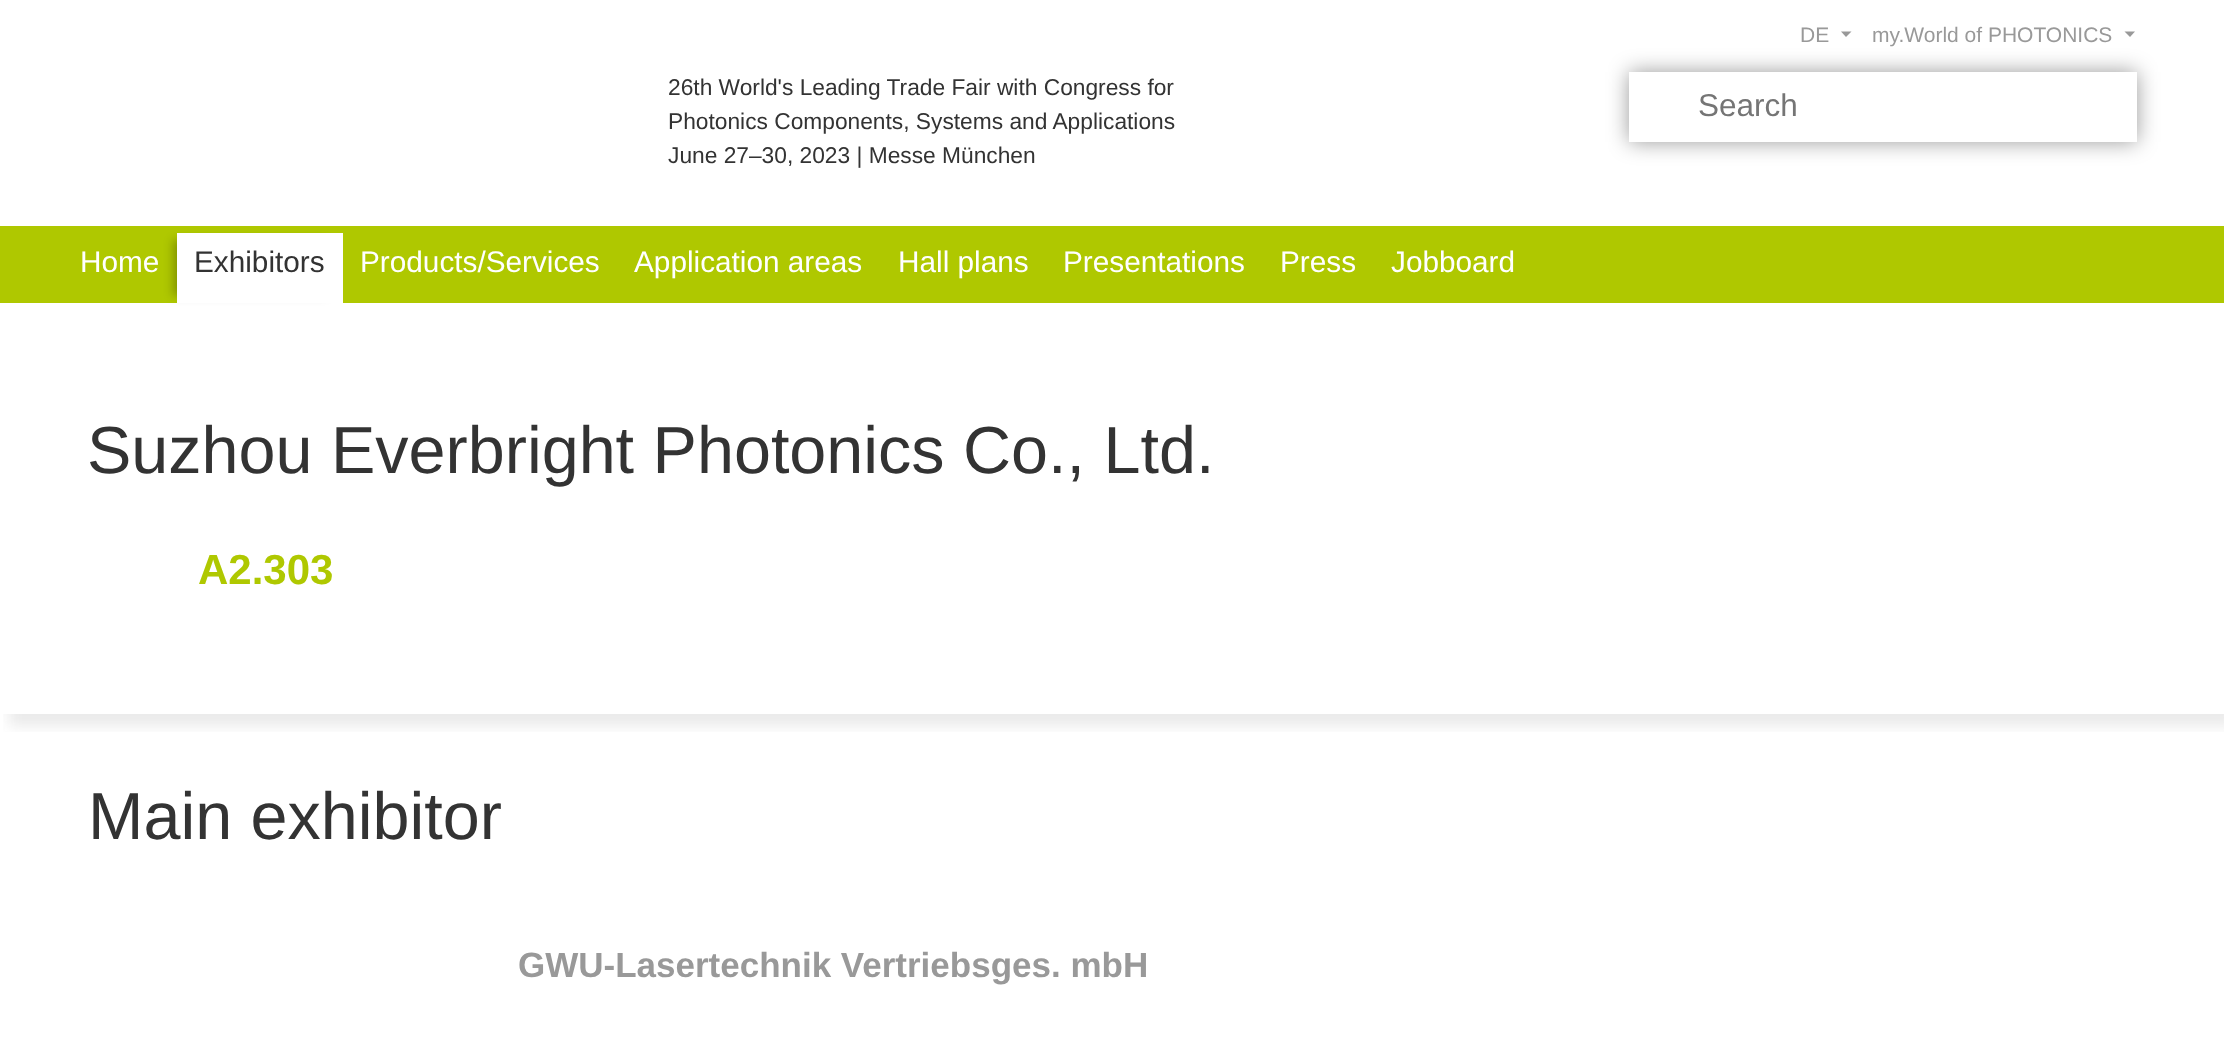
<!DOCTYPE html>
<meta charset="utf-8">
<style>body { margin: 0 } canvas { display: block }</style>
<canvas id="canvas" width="2224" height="1049"></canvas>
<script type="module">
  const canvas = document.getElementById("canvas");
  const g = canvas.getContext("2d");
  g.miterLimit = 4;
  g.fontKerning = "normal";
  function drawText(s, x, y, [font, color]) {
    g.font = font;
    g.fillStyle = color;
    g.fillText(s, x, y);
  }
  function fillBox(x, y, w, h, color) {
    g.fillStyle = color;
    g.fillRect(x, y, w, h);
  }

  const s1 = ["21px Liberation Sans", "#999999"];
  const s2 = ["22.75px Liberation Sans", "#333333"];
  const s3 = ["31.5px Liberation Sans", "#757575"];
  const s4 = ["29.75px Liberation Sans", "#FFFFFF"];
  const s5 = ["29.75px Liberation Sans", "#333333"];
  const s6 = ["66.5px Liberation Sans", "#333333"];
  const s7 = ["bold 42px Liberation Sans", "#AFC800"];
  const s8 = ["bold 35px Liberation Sans", "#999999"];

  fillBox(0, 0, 2224, 1049, "#FFFFFF");
  g.fillStyle = "rgba(0, 0, 0, 0.4)";
  g.filter = "blur(10.5px)";
  g.beginPath();
  g.rect(1629, 72, 508, 70);
  g.fill();
  g.filter = "none";
  drawText("DE", 1800, 42, s1);
  g.beginPath();
  g.moveTo(1841, 31.5);
  g.lineTo(1851.5, 31.5);
  g.lineTo(1846, 37);
  g.closePath();
  g.fill();
  drawText("my.World of PHOTONICS", 1872, 42, s1);
  g.beginPath();
  g.moveTo(2124.5, 31.5);
  g.lineTo(2135, 31.5);
  g.lineTo(2130, 37);
  g.closePath();
  g.fill();
  drawText("26th World's Leading Trade Fair with Congress for", 668, 95, s2);
  drawText("Photonics Components, Systems and Applications", 668, 129, s2);
  drawText("June 27–30, 2023 | Messe München", 668, 163, s2);
  fillBox(1629, 72, 508, 70, "#FFFFFF");
  drawText("Search", 1698, 116, s3);
  fillBox(0, 226, 2224, 77, "#AFC800");
  drawText("Home", 80, 272, s4);
  g.fillStyle = "rgba(0, 0, 0, 0.25)";
  g.filter = "blur(5px)";
  g.beginPath();
  g.rect(173, 240, 153, 56);
  g.fill();
  g.filter = "none";
  fillBox(177, 233, 166, 70, "#FFFFFF");
  drawText("Exhibitors", 194, 272, s5);
  drawText("Products/Services", 360, 272, s4);
  drawText("Application areas", 634, 272, s4);
  drawText("Hall plans", 898, 272, s4);
  drawText("Presentations", 1063, 272, s4);
  drawText("Press", 1280, 272, s4);
  drawText("Jobboard", 1391, 272, s4);
  drawText("Suzhou Everbright Photonics Co., Ltd.", 87, 473, s6);
  drawText("A2.303", 198, 584, s7);
  g.save();
  g.beginPath();
  g.rect(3, 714, 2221, 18);
  g.clip();
  g.fillStyle = "rgba(51, 51, 51, 0.1)";
  g.filter = "blur(7px)";
  g.beginPath();
  g.rect(9, 691, 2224, 35);
  g.fill();
  g.filter = "none";
  g.restore();
  drawText("Main exhibitor", 88, 839, s6);
  drawText("GWU-Lasertechnik Vertriebsges. mbH", 518, 977, s8);
</script>
